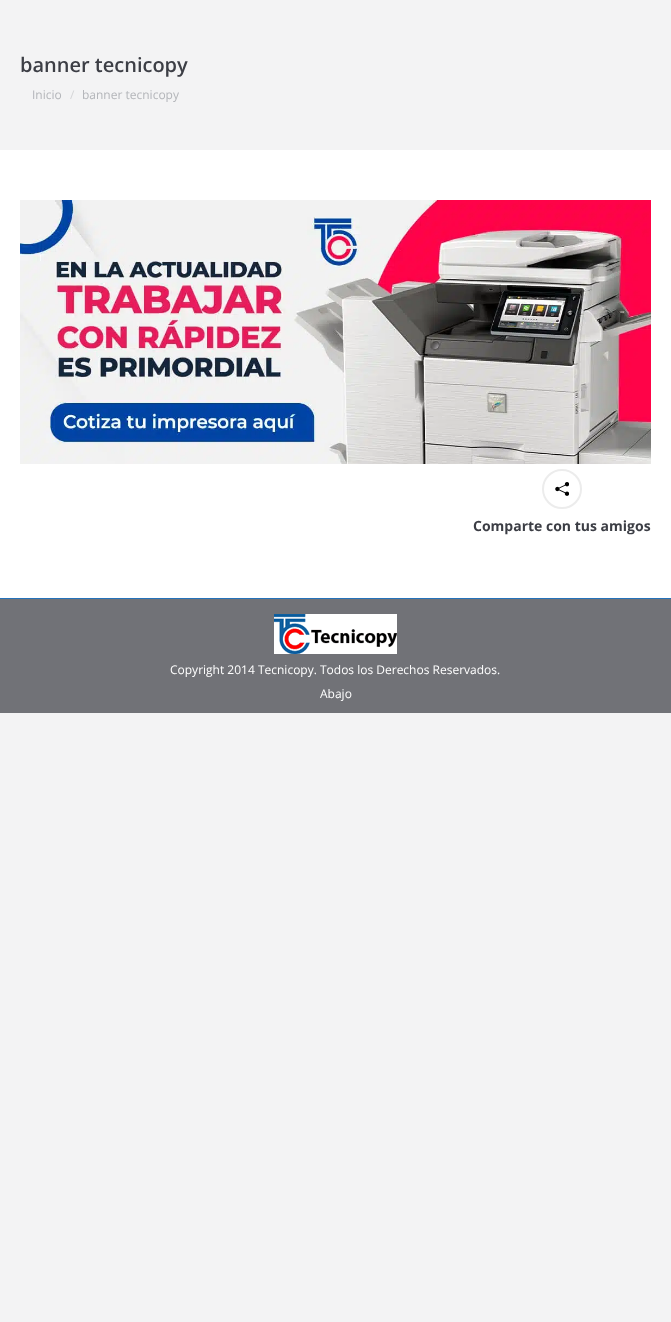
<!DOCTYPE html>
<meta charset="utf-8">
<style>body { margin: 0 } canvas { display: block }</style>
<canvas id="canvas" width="671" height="1322"></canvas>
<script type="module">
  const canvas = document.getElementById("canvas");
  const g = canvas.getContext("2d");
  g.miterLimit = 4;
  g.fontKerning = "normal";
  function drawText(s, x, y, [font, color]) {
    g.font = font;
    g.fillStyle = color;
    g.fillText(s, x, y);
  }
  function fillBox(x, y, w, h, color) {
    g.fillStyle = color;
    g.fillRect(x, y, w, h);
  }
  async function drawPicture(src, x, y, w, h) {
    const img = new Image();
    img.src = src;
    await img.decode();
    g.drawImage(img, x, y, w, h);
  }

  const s1 = ["600 20px Open Sans", "#3C3E45"];
  const s2 = ["12px Open Sans", "#B3B5B9"];
  const s3 = ["12px Open Sans", "#D4D5D7"];
  const s4 = ["bold 14px Open Sans", "#3C3E45"];
  const s5 = ["12px Open Sans", "#FFFFFF"];

  fillBox(0, 0, 671, 1322, "#F3F3F4");
  fillBox(0, 150, 671, 448, "#FFFFFF");
  drawText("banner tecnicopy", 20, 72, s1);
  drawText("Inicio", 32, 99, s2);
  drawText("/", 70, 99, s3);
  drawText("banner tecnicopy", 82, 99, s2);
  await drawPicture("pic1.png", 20, 200, 631, 264);
  g.beginPath();
  g.arc(562, 489, 19, 0, Math.PI * 2);
  g.strokeStyle = "#ECECEC";
  g.lineWidth = 2;
  g.stroke();
  await drawPicture("pic2.png", 555, 482, 14, 14);
  drawText("Comparte con tus amigos", 473, 531, s4);
  fillBox(0, 598, 671, 1, "#2572BA");
  fillBox(0, 599, 671, 114, "#717277");
  await drawPicture("pic3.png", 274, 614, 123, 40);
  drawText("Copyright 2014 Tecnicopy. Todos los Derechos Reservados.", 170, 674, s5);
  drawText("Abajo", 320, 698, s5);
</script>
